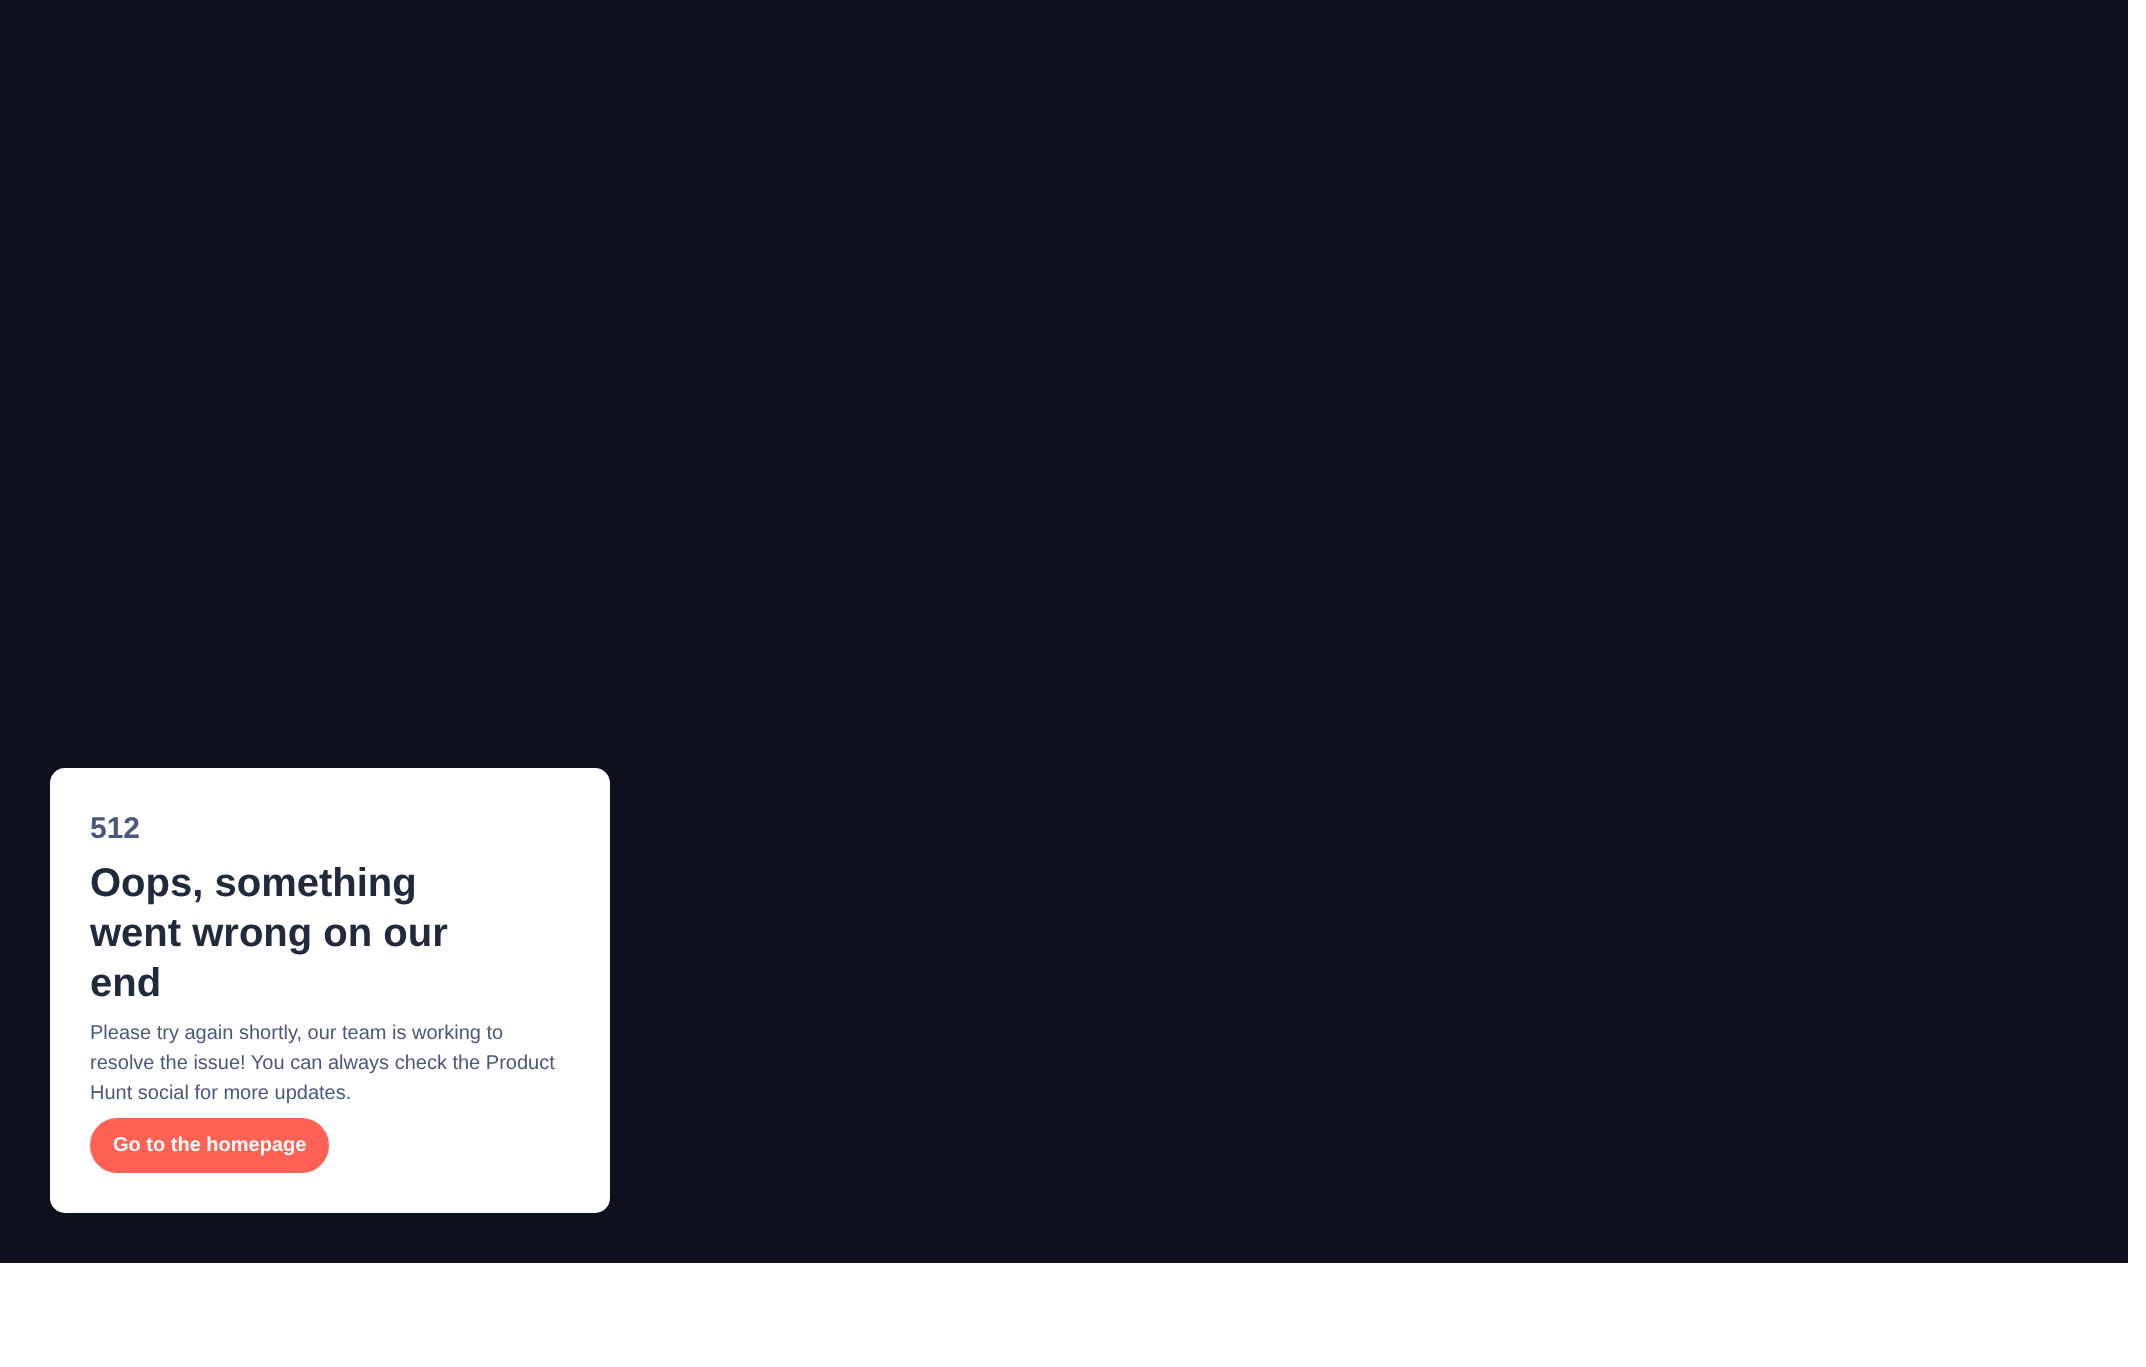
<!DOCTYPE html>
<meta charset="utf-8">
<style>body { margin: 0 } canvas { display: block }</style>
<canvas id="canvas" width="2146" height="1367"></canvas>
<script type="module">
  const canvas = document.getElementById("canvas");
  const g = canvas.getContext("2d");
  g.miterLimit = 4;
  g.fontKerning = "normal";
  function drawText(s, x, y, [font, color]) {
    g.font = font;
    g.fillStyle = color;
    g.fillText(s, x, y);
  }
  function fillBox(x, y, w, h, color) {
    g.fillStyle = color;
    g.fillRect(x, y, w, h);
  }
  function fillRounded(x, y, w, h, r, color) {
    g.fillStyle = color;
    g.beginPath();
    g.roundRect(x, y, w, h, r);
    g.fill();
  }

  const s1 = ["bold 30px Liberation Sans", "#4B587C"];
  const s2 = ["bold 40px Liberation Sans", "#21293C"];
  const s3 = ["20px Liberation Sans", "#4B587C"];
  const s4 = ["bold 20px Liberation Sans", "#FFFFFF"];

  fillBox(0, 0, 2146, 1367, "#FFFFFF");
  fillBox(0, 0, 2128, 1263, "#0C111D");
  fillRounded(50, 768, 560, 445, 15, "#FFFFFF");
  drawText("512", 90, 838, s1);
  drawText("Oops, something", 90, 896, s2);
  drawText("went wrong on our", 90, 946, s2);
  drawText("end", 90, 996, s2);
  drawText("Please try again shortly, our team is working to", 90, 1039, s3);
  drawText("resolve the issue! You can always check the Product", 90, 1069, s3);
  drawText("Hunt social for more updates.", 90, 1099, s3);
  g.fillStyle = "#FF6154";
  g.beginPath();
  g.roundRect(91.5, 1119.5, 236, 52, 26);
  g.fill();
  g.strokeStyle = "#FF6154";
  g.lineWidth = 3;
  g.stroke();
  drawText("Go to the homepage", 113, 1151, s4);
</script>
